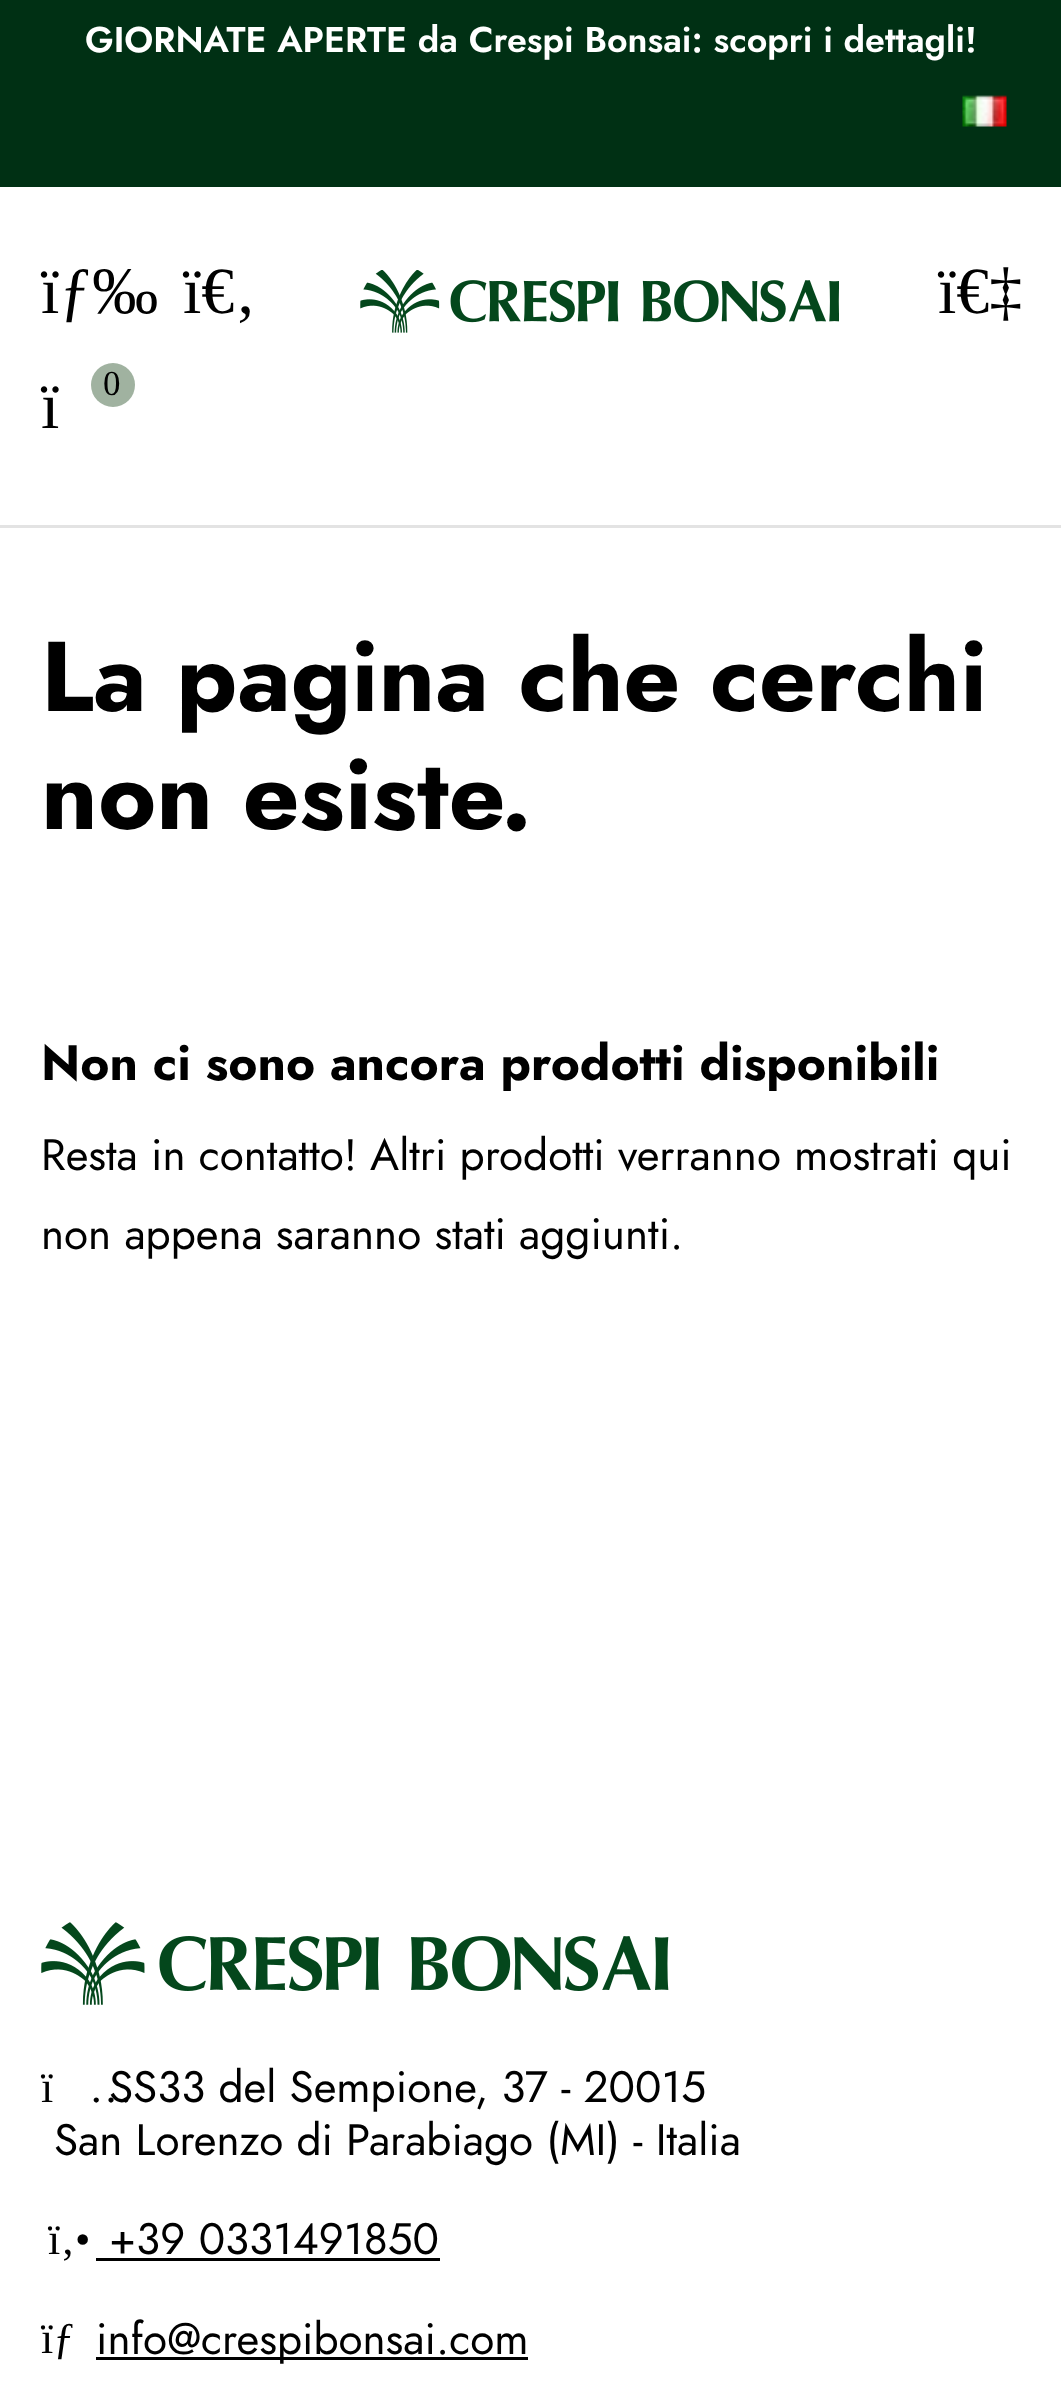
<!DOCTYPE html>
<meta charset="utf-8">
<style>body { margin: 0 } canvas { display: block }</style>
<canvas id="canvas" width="1061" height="2408"></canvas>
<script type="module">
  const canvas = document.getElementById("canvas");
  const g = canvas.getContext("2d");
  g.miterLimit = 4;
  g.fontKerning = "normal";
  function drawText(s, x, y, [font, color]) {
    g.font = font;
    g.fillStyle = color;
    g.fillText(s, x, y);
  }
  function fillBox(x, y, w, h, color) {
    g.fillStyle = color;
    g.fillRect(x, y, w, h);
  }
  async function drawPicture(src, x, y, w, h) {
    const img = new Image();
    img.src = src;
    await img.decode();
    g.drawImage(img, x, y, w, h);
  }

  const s1 = ["600 35.75px Jost", "#FFFFFF"];
  const s2 = ["66px Liberation Serif", "#000000"];
  const s3 = ["35px Liberation Serif", "#000000"];
  const s4 = ["bold 99px Jost", "#000000"];
  const s5 = ["bold 49.5px Jost", "#000000"];
  const s6 = ["44px Jost", "#000000"];
  const s7 = ["44px Liberation Serif", "#000000"];

  fillBox(0, 0, 1061, 2408, "#FFFFFF");
  fillBox(0, 0, 1061, 187, "#003014");
  drawText("GIORNATE APERTE da Crespi Bonsai: scopri i dettagli!", 85, 52, s1);
  await drawPicture("pic1.png", 962, 95, 45, 32);
  fillBox(0, 525, 1061, 3, "#E3E3E3");
  drawText("ïƒ‰", 41, 313, s2);
  drawText("ï€‚", 183, 313, s2);
  await drawPicture("pic2.png", 360, 270, 479, 63);
  drawText("ï€‡", 938, 313, s2);
  g.fillStyle = "#A0B2A0";
  g.beginPath();
  g.arc(113, 385, 22, 0, Math.PI * 2);
  g.fill();
  drawText("0", 103, 395, s3);
  drawText("ï", 41, 428, s2);
  drawText("La pagina che cerchi", 41, 711, s4);
  drawText("non esiste.", 41, 829, s4);
  drawText("Non ci sono ancora prodotti disponibili", 41, 1080, s5);
  drawText("Resta in contatto! Altri prodotti verranno mostrati qui", 41, 1170, s6);
  drawText("non appena saranno stati aggiunti.", 41, 1249, s6);
  await drawPicture("pic3.png", 41, 1922, 628, 83);
  drawText("ï", 41, 2102, s7);
  drawText("…", 89, 2102, s7);
  drawText("SS33 del Sempione, 37 - 20015", 109, 2102, s6);
  drawText("San Lorenzo di Parabiago (MI) - Italia", 54, 2155, s6);
  drawText("ï‚•", 48, 2254, s7);
  drawText("+39 0331491850", 109, 2254, s6);
  fillBox(96, 2258, 344, 3, "#000000");
  drawText("ïƒ", 41, 2353, s7);
  fillBox(96, 2357, 432, 3, "#000000");
  drawText("info@crespibonsai.com", 96, 2354, s6);
</script>
